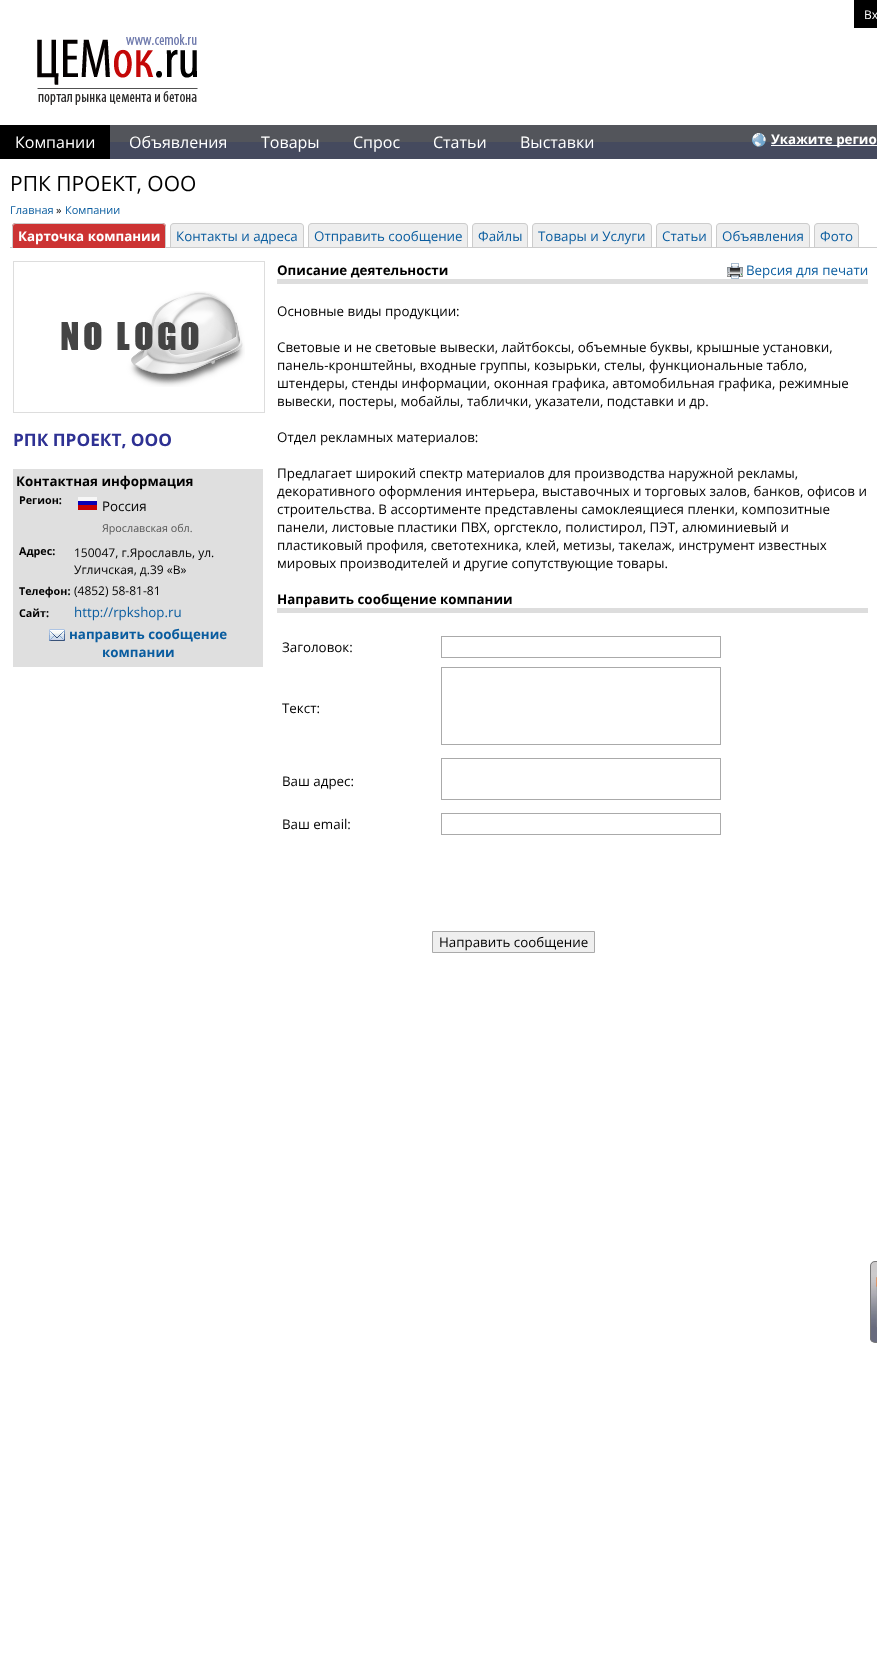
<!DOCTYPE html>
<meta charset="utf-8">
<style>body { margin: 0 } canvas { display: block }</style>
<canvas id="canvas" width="877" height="1656"></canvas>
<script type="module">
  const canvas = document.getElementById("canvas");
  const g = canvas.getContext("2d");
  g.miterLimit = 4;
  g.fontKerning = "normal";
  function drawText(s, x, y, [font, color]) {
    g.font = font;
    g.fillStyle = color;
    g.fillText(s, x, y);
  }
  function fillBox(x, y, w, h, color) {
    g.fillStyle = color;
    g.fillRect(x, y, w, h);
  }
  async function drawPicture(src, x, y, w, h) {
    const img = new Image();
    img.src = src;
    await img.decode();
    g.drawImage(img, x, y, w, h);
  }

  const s1 = ["12px Open Sans", "#FFFFFF"];
  const s2 = ["16px Open Sans", "#FFFFFF"];
  const s3 = ["bold 13.35px Open Sans", "#FFFFFF"];
  const s4 = ["21px Open Sans", "#000000"];
  const s5 = ["11px Open Sans", "#095C9F"];
  const s6 = ["11px Open Sans", "#000000"];
  const s7 = ["13.35px Open Sans", "#095C9F"];
  const s8 = ["bold 17.25px Open Sans", "#2E3193"];
  const s9 = ["bold 13.35px Open Sans", "#000000"];
  const s10 = ["bold 10.75px Open Sans", "#000000"];
  const s11 = ["13.35px Open Sans", "#000000"];
  const s12 = ["10.75px Open Sans", "#555555"];
  const s13 = ["12px Open Sans", "#000000"];
  const s14 = ["bold 13.35px Open Sans", "#095C9F"];

  fillBox(0, 0, 877, 1656, "#FFFFFF");
  fillBox(854, 0, 23, 28, "#000000");
  drawText("Вх", 864, 19, s1);
  await drawPicture("pic1.png", 37, 34, 161, 71);
  await drawPicture("pic2.png", 110, 125, 767, 34);
  fillBox(0, 125, 110, 34, "#000000");
  drawText("Компании", 15, 148, s2);
  drawText("Объявления", 129, 148, s2);
  drawText("Товары", 261, 148, s2);
  drawText("Спрос", 353, 148, s2);
  drawText("Статьи", 433, 148, s2);
  drawText("Выставки", 520, 148, s2);
  await drawPicture("pic3.png", 752, 133, 14, 14);
  fillBox(771, 145, 106, 1, "#FFFFFF");
  drawText("Укажите регио", 771, 144, s3);
  drawText("РПК ПРОЕКТ, ООО", 10, 191, s4);
  drawText("Главная", 10, 214, s5);
  drawText("»", 56, 214, s6);
  drawText("Компании", 65, 214, s5);
  fillBox(10, 247, 867, 1, "#CCCCCC");
  g.fillStyle = "#CC3333";
  g.beginPath();
  g.roundRect(12, 223, 154, 25, [4, 4, 0, 0]);
  g.fill();
  g.fillStyle = "#CCCCCC";
  g.beginPath();
  g.moveTo(16, 223);
  g.lineTo(162, 223);
  g.bezierCurveTo(164, 223, 166, 225, 166, 227);
  g.lineTo(166, 248);
  g.lineTo(12, 248);
  g.lineTo(12, 227);
  g.bezierCurveTo(12, 225, 14, 223, 16, 223);
  g.closePath();
  g.moveTo(16, 224);
  g.lineTo(162, 224);
  g.bezierCurveTo(164, 224, 165, 225, 165, 227);
  g.lineTo(165, 248);
  g.lineTo(13, 248);
  g.lineTo(13, 227);
  g.bezierCurveTo(13, 225, 14, 224, 16, 224);
  g.closePath();
  g.fill("evenodd");
  drawText("Карточка компании", 18, 241, s3);
  g.fillStyle = "#EEEEEE";
  g.beginPath();
  g.roundRect(170, 223, 134, 24, [4, 4, 0, 0]);
  g.fill();
  g.fillStyle = "#CCCCCC";
  g.beginPath();
  g.moveTo(174, 223);
  g.lineTo(300, 223);
  g.bezierCurveTo(302, 223, 304, 225, 304, 227);
  g.lineTo(304, 247);
  g.lineTo(170, 247);
  g.lineTo(170, 227);
  g.bezierCurveTo(170, 225, 172, 223, 174, 223);
  g.closePath();
  g.moveTo(174, 224);
  g.lineTo(300, 224);
  g.bezierCurveTo(302, 224, 303, 225, 303, 227);
  g.lineTo(303, 247);
  g.lineTo(171, 247);
  g.lineTo(171, 227);
  g.bezierCurveTo(171, 225, 172, 224, 174, 224);
  g.closePath();
  g.fill("evenodd");
  drawText("Контакты и адреса", 176, 241, s7);
  g.fillStyle = "#EEEEEE";
  g.beginPath();
  g.roundRect(308, 223, 160, 24, [4, 4, 0, 0]);
  g.fill();
  g.fillStyle = "#CCCCCC";
  g.beginPath();
  g.moveTo(312, 223);
  g.lineTo(464, 223);
  g.bezierCurveTo(466, 223, 468, 225, 468, 227);
  g.lineTo(468, 247);
  g.lineTo(308, 247);
  g.lineTo(308, 227);
  g.bezierCurveTo(308, 225, 310, 223, 312, 223);
  g.closePath();
  g.moveTo(312, 224);
  g.lineTo(464, 224);
  g.bezierCurveTo(466, 224, 467, 225, 467, 227);
  g.lineTo(467, 247);
  g.lineTo(309, 247);
  g.lineTo(309, 227);
  g.bezierCurveTo(309, 225, 310, 224, 312, 224);
  g.closePath();
  g.fill("evenodd");
  drawText("Отправить сообщение", 314, 241, s7);
  g.fillStyle = "#EEEEEE";
  g.beginPath();
  g.roundRect(472, 223, 56, 24, [4, 4, 0, 0]);
  g.fill();
  g.fillStyle = "#CCCCCC";
  g.beginPath();
  g.moveTo(476, 223);
  g.lineTo(524, 223);
  g.bezierCurveTo(526, 223, 528, 225, 528, 227);
  g.lineTo(528, 247);
  g.lineTo(472, 247);
  g.lineTo(472, 227);
  g.bezierCurveTo(472, 225, 474, 223, 476, 223);
  g.closePath();
  g.moveTo(476, 224);
  g.lineTo(524, 224);
  g.bezierCurveTo(526, 224, 527, 225, 527, 227);
  g.lineTo(527, 247);
  g.lineTo(473, 247);
  g.lineTo(473, 227);
  g.bezierCurveTo(473, 225, 474, 224, 476, 224);
  g.closePath();
  g.fill("evenodd");
  drawText("Файлы", 478, 241, s7);
  g.fillStyle = "#EEEEEE";
  g.beginPath();
  g.roundRect(532, 223, 120, 24, [4, 4, 0, 0]);
  g.fill();
  g.fillStyle = "#CCCCCC";
  g.beginPath();
  g.moveTo(536, 223);
  g.lineTo(648, 223);
  g.bezierCurveTo(650, 223, 652, 225, 652, 227);
  g.lineTo(652, 247);
  g.lineTo(532, 247);
  g.lineTo(532, 227);
  g.bezierCurveTo(532, 225, 534, 223, 536, 223);
  g.closePath();
  g.moveTo(536, 224);
  g.lineTo(648, 224);
  g.bezierCurveTo(650, 224, 651, 225, 651, 227);
  g.lineTo(651, 247);
  g.lineTo(533, 247);
  g.lineTo(533, 227);
  g.bezierCurveTo(533, 225, 534, 224, 536, 224);
  g.closePath();
  g.fill("evenodd");
  drawText("Товары и Услуги", 538, 241, s7);
  g.fillStyle = "#EEEEEE";
  g.beginPath();
  g.roundRect(656, 223, 56, 24, [4, 4, 0, 0]);
  g.fill();
  g.fillStyle = "#CCCCCC";
  g.beginPath();
  g.moveTo(660, 223);
  g.lineTo(708, 223);
  g.bezierCurveTo(710, 223, 712, 225, 712, 227);
  g.lineTo(712, 247);
  g.lineTo(656, 247);
  g.lineTo(656, 227);
  g.bezierCurveTo(656, 225, 658, 223, 660, 223);
  g.closePath();
  g.moveTo(660, 224);
  g.lineTo(708, 224);
  g.bezierCurveTo(710, 224, 711, 225, 711, 227);
  g.lineTo(711, 247);
  g.lineTo(657, 247);
  g.lineTo(657, 227);
  g.bezierCurveTo(657, 225, 658, 224, 660, 224);
  g.closePath();
  g.fill("evenodd");
  drawText("Статьи", 662, 241, s7);
  g.fillStyle = "#EEEEEE";
  g.beginPath();
  g.roundRect(716, 223, 94, 24, [4, 4, 0, 0]);
  g.fill();
  g.fillStyle = "#CCCCCC";
  g.beginPath();
  g.moveTo(720, 223);
  g.lineTo(806, 223);
  g.bezierCurveTo(808, 223, 810, 225, 810, 227);
  g.lineTo(810, 247);
  g.lineTo(716, 247);
  g.lineTo(716, 227);
  g.bezierCurveTo(716, 225, 718, 223, 720, 223);
  g.closePath();
  g.moveTo(720, 224);
  g.lineTo(806, 224);
  g.bezierCurveTo(808, 224, 809, 225, 809, 227);
  g.lineTo(809, 247);
  g.lineTo(717, 247);
  g.lineTo(717, 227);
  g.bezierCurveTo(717, 225, 718, 224, 720, 224);
  g.closePath();
  g.fill("evenodd");
  drawText("Объявления", 722, 241, s7);
  g.fillStyle = "#EEEEEE";
  g.beginPath();
  g.roundRect(814, 223, 45, 24, [4, 4, 0, 0]);
  g.fill();
  g.fillStyle = "#CCCCCC";
  g.beginPath();
  g.moveTo(818, 223);
  g.lineTo(855, 223);
  g.bezierCurveTo(857, 223, 859, 225, 859, 227);
  g.lineTo(859, 247);
  g.lineTo(814, 247);
  g.lineTo(814, 227);
  g.bezierCurveTo(814, 225, 816, 223, 818, 223);
  g.closePath();
  g.moveTo(818, 224);
  g.lineTo(855, 224);
  g.bezierCurveTo(857, 224, 858, 225, 858, 227);
  g.lineTo(858, 247);
  g.lineTo(815, 247);
  g.lineTo(815, 227);
  g.bezierCurveTo(815, 225, 816, 224, 818, 224);
  g.closePath();
  g.fill("evenodd");
  drawText("Фото", 820, 241, s7);
  g.strokeStyle = "#DDDDDD";
  g.strokeRect(13.5, 261.5, 251, 151);
  await drawPicture("pic4.png", 61, 291, 184, 96);
  drawText("РПК ПРОЕКТ, ООО", 13, 446, s8);
  fillBox(13, 469, 250, 198, "#DFDFDF");
  drawText("Контактная информация", 16, 486, s9);
  drawText("Регион:", 19, 504, s10);
  await drawPicture("pic5.png", 78, 497, 19, 13);
  drawText("Россия", 102, 511, s11);
  drawText("Ярославская обл.", 102, 532, s12);
  drawText("Адрес:", 19, 555, s10);
  drawText("150047, г.Ярославль, ул.", 74, 557, s13);
  drawText("Угличская, д.39 «В»", 74, 574, s13);
  drawText("Телефон:", 19, 595, s10);
  drawText("(4852) 58-81-81", 74, 595, s13);
  drawText("Сайт:", 19, 617, s10);
  drawText("http://rpkshop.ru", 74, 617, s7);
  await drawPicture("pic6.png", 49, 629, 16, 12);
  drawText("направить сообщение", 69, 639, s14);
  drawText("компании", 102, 657, s14);
  fillBox(277, 279, 591, 5, "#DDDDDD");
  drawText("Описание деятельности", 277, 275, s9);
  await drawPicture("pic7.png", 727, 263, 16, 16);
  drawText("Версия для печати", 746, 275, s7);
  drawText("Основные виды продукции:", 277, 316, s11);
  drawText("Световые и не световые вывески, лайтбоксы, объемные буквы, крышные установки,", 277, 352, s11);
  drawText("панель-кронштейны, входные группы, козырьки, стелы, функциональные табло,", 277, 370, s11);
  drawText("штендеры, стенды информации, оконная графика, автомобильная графика, режимные", 277, 388, s11);
  drawText("вывески, постеры, мобайлы, таблички, указатели, подставки и др.", 277, 406, s11);
  drawText("Отдел рекламных материалов:", 277, 442, s11);
  drawText("Предлагает широкий спектр материалов для производства наружной рекламы,", 277, 478, s11);
  drawText("декоративного оформления интерьера, выставочных и торговых залов, банков, офисов и", 277, 496, s11);
  drawText("строительства. В ассортименте представлены самоклеящиеся пленки, композитные", 277, 514, s11);
  drawText("панели, листовые пластики ПВХ, оргстекло, полистирол, ПЭТ, алюминиевый и", 277, 532, s11);
  drawText("пластиковый профиля, светотехника, клей, метизы, такелаж, инструмент известных", 277, 550, s11);
  drawText("мировых производителей и другие сопутствующие товары.", 277, 568, s11);
  fillBox(277, 608, 591, 5, "#DDDDDD");
  drawText("Направить сообщение компании", 277, 604, s9);
  drawText("Заголовок:", 282, 652, s11);
  g.strokeStyle = "#AAAAAA";
  g.strokeRect(441.5, 636.5, 279, 21);
  drawText("Текст:", 282, 713, s11);
  g.strokeRect(441.5, 667.5, 279, 77);
  drawText("Ваш адрес:", 282, 786, s11);
  g.strokeRect(441.5, 758.5, 279, 41);
  drawText("Ваш email:", 282, 829, s11);
  g.strokeRect(441.5, 813.5, 279, 21);
  g.fillStyle = "#EFEFEF";
  g.beginPath();
  g.rect(432.5, 931.5, 162, 21);
  g.fill();
  g.stroke();
  drawText("Направить сообщение", 439, 947, s11);
  await drawPicture("pic8.png", 870, 1261, 7, 81);
  g.beginPath();
  g.roundRect(870.5, 1261.5, 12, 81, 4.5);
  g.strokeStyle = "#777777";
  g.stroke();
  await drawPicture("pic9.png", 876, 1277, 1, 50);
</script>
